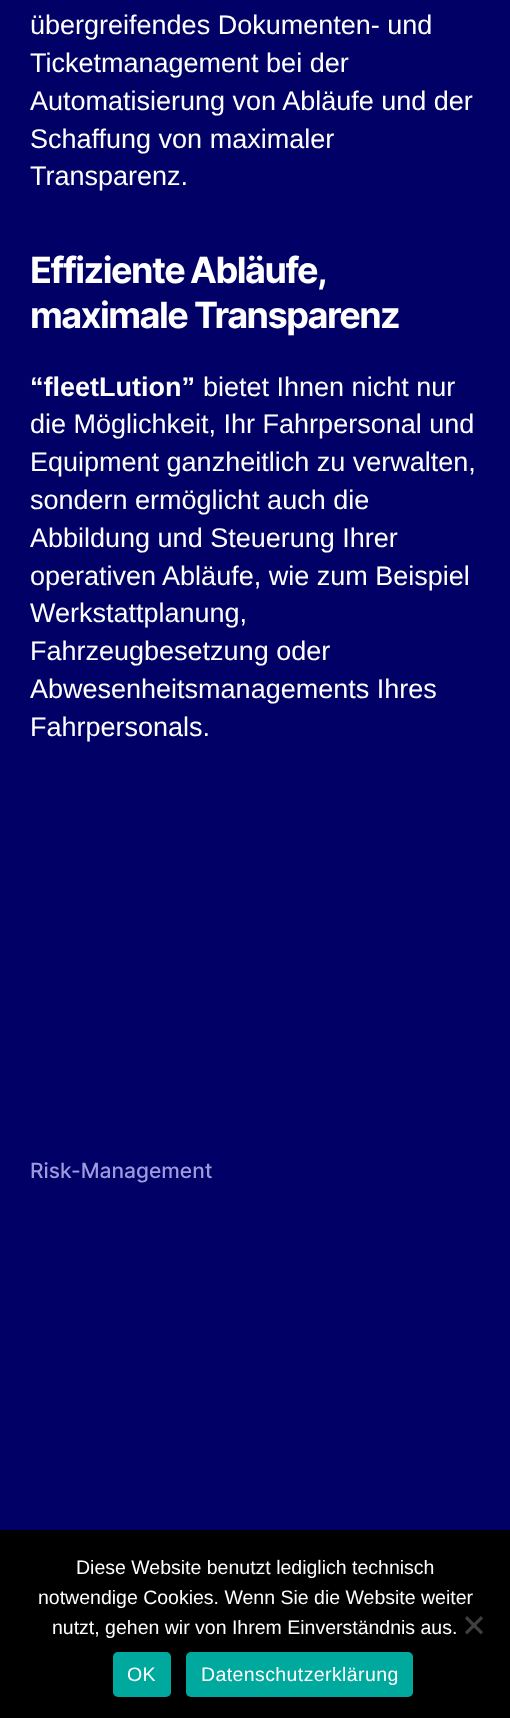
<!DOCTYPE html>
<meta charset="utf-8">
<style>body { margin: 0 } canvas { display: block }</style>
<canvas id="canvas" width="510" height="1718"></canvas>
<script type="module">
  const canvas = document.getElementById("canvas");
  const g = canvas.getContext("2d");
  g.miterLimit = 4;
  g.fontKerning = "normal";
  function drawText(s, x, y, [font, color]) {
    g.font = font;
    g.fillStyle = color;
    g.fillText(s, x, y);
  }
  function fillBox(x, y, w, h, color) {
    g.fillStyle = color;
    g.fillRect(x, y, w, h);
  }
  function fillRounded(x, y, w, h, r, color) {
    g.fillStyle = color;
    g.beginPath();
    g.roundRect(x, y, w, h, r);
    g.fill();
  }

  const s1 = ["27px Liberation Sans", "#FFFFFF"];
  const s2 = ["bold 36px Inter", "#FFFFFF"];
  const s3 = ["bold 27px Liberation Sans", "#FFFFFF"];
  const s4 = ["500 21px Inter", "#9C9BDD"];
  const s5 = ["19.5px Liberation Sans", "#FFFFFF"];

  fillBox(0, 0, 510, 1718, "#010066");
  drawText("übergreifendes Dokumenten- und", 30, 34, s1);
  drawText("Ticketmanagement bei der", 30, 72, s1);
  drawText("Automatisierung von Abläufe und der", 30, 110, s1);
  drawText("Schaffung von maximaler", 30, 148, s1);
  drawText("Transparenz.", 30, 185, s1);
  g.letterSpacing = "-1.5px";
  g.wordSpacing = "-1px";
  drawText("Effiziente Abläufe,", 30, 283, s2);
  g.wordSpacing = "0px";
  drawText("maximale Transparenz", 30, 328, s2);
  g.letterSpacing = "0px";
  drawText("“fleetLution”", 30, 396, s3);
  drawText("bietet Ihnen nicht nur", 203, 396, s1);
  drawText("die Möglichkeit, Ihr Fahrpersonal und", 30, 433, s1);
  drawText("Equipment ganzheitlich zu verwalten,", 30, 471, s1);
  drawText("sondern ermöglicht auch die", 30, 509, s1);
  drawText("Abbildung und Steuerung Ihrer", 30, 547, s1);
  drawText("operativen Abläufe, wie zum Beispiel", 30, 585, s1);
  drawText("Werkstattplanung,", 30, 622, s1);
  drawText("Fahrzeugbesetzung oder", 30, 660, s1);
  drawText("Abwesenheitsmanagements Ihres", 30, 698, s1);
  drawText("Fahrpersonals.", 30, 736, s1);
  drawText("Risk-Management", 30, 1178, s4);
  fillBox(0, 1530, 510, 188, "#000000");
  drawText("Diese Website benutzt lediglich technisch", 76, 1574, s5);
  drawText("notwendige Cookies. Wenn Sie die Website weiter", 38, 1604, s5);
  drawText("nutzt, gehen wir von Ihrem Einverständnis aus.", 52, 1634, s5);
  g.fillStyle = "#404040";
  g.beginPath();
  g.moveTo(481, 1616);
  g.lineTo(483, 1618.5);
  g.lineTo(467, 1634.5);
  g.lineTo(465, 1632);
  g.closePath();
  g.fill();
  g.beginPath();
  g.moveTo(465, 1618.5);
  g.lineTo(467, 1616);
  g.lineTo(483, 1632);
  g.lineTo(481, 1634.5);
  g.closePath();
  g.fill();
  fillRounded(113, 1652, 58, 45, 5, "#00A99D");
  g.letterSpacing = "0.4px";
  drawText("OK", 127, 1681, s5);
  fillRounded(186, 1652, 227, 45, 5, "#00A99D");
  drawText("Datenschutzerklärung", 201, 1681, s5);
</script>
